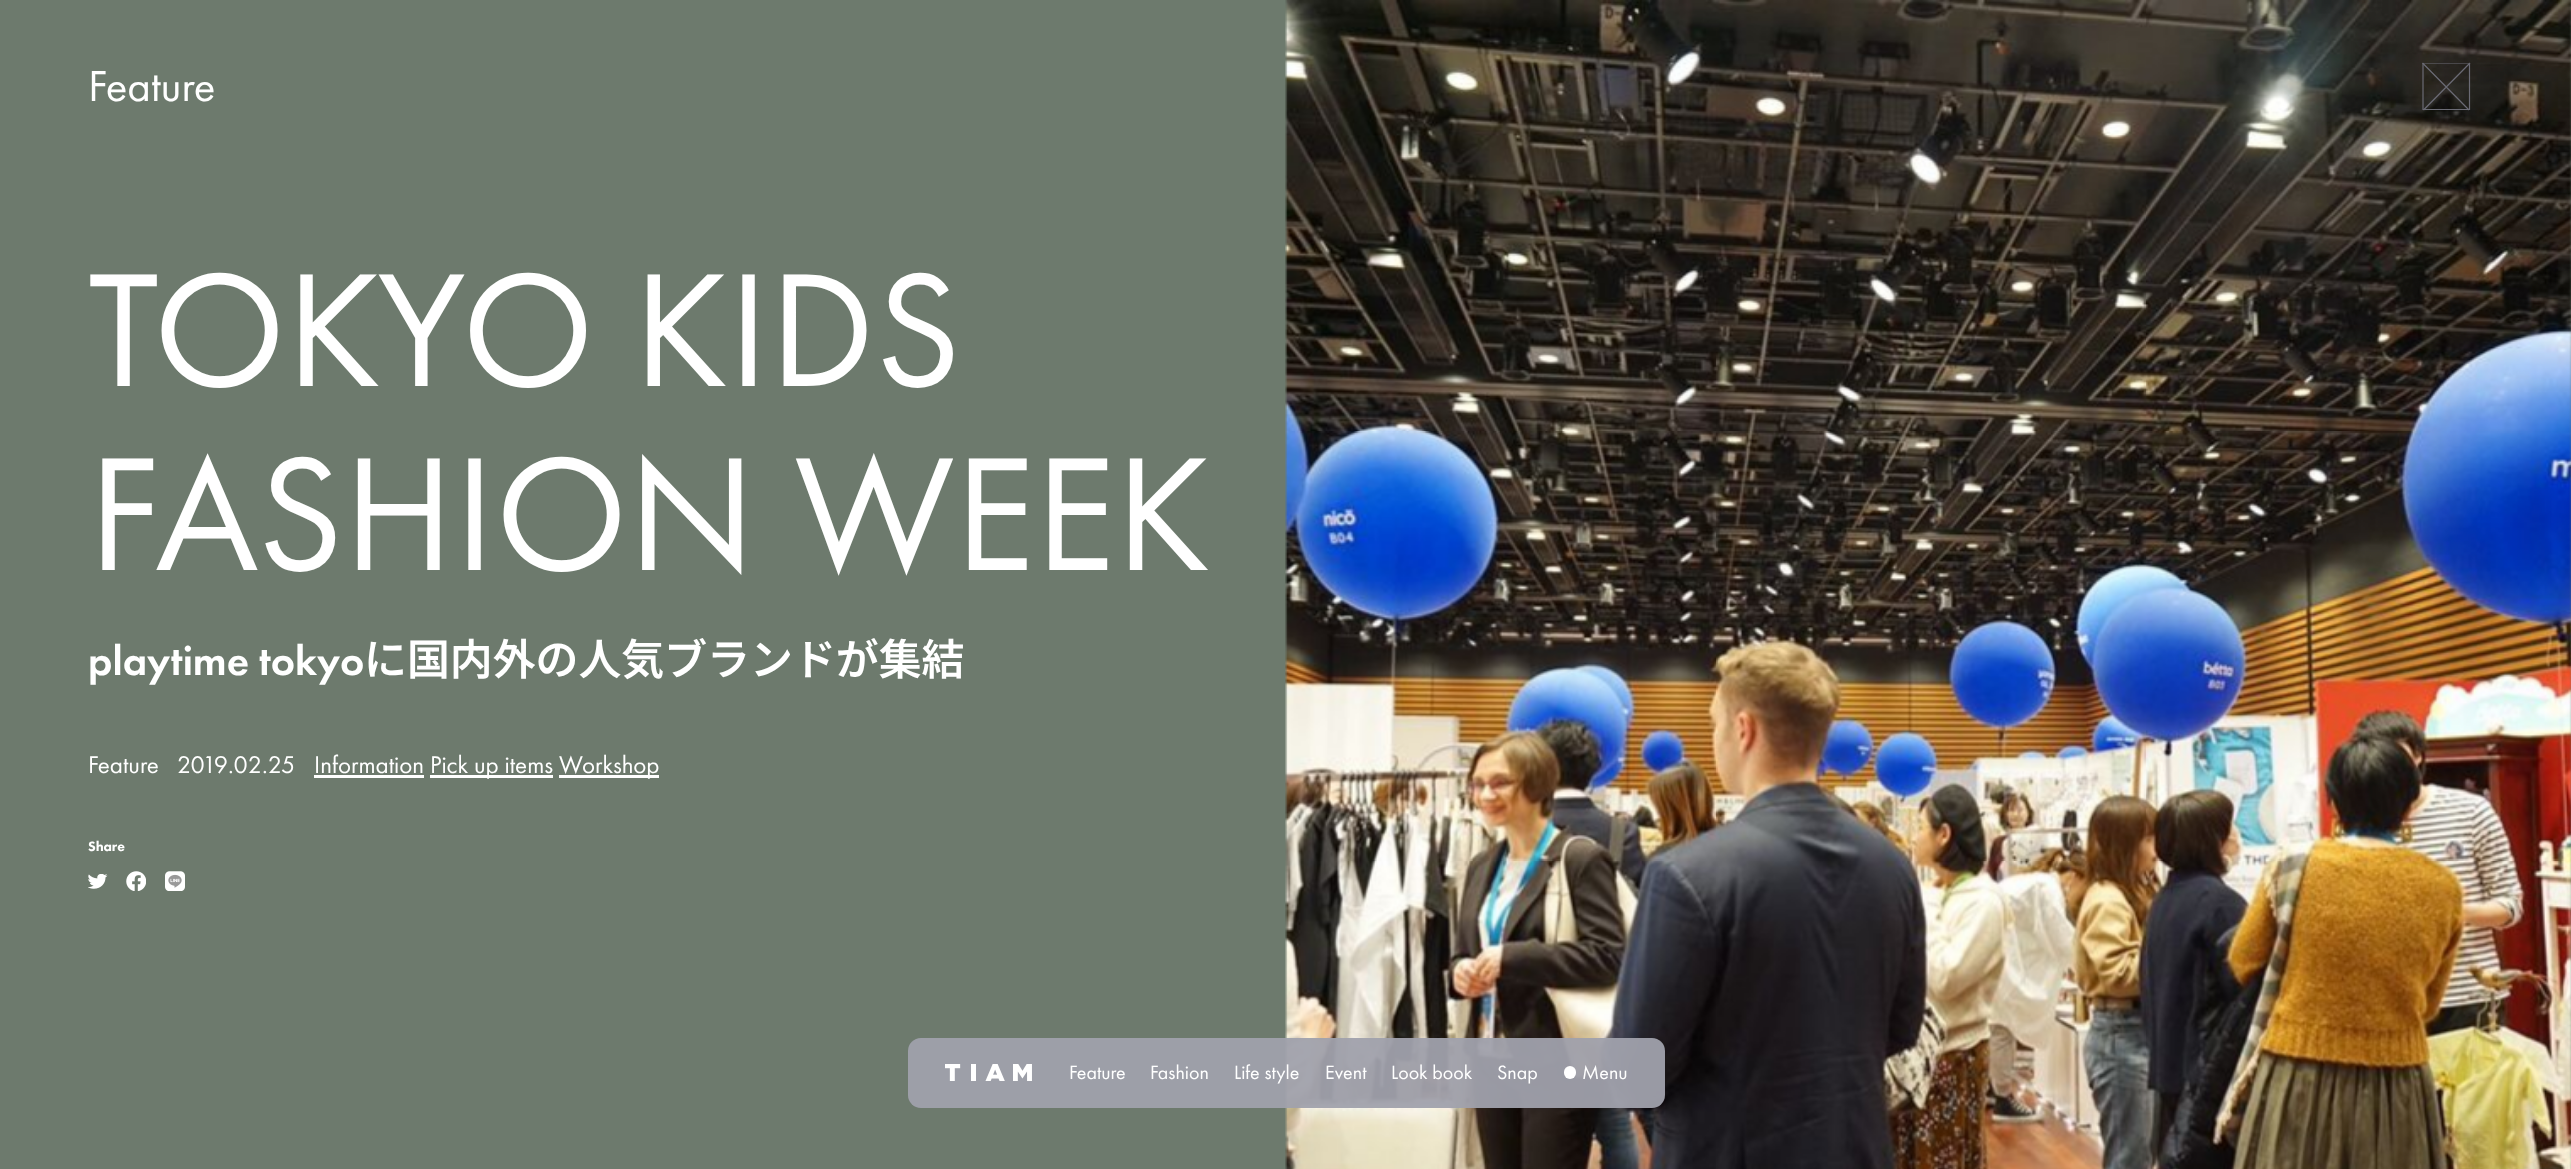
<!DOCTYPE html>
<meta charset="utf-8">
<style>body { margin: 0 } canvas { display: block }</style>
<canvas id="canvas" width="2571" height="1169"></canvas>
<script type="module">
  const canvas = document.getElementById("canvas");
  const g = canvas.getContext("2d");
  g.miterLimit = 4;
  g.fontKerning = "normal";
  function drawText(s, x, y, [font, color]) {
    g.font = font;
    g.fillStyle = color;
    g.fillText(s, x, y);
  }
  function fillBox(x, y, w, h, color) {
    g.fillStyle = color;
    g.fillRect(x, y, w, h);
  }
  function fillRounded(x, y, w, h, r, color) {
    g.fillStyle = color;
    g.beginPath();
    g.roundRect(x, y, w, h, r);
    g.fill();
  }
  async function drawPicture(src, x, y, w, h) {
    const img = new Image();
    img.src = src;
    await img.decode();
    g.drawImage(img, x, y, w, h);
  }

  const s1 = ["45px Futura PT", "#FFFFFF"];
  const s2 = ["167px Futura PT", "#FFFFFF"];
  const s3 = ["500 42.9px Futura PT", "#FFFFFF"];
  const s4 = ["600 42.9px Noto Sans JP", "#FFFFFF"];
  const s5 = ["25px Futura PT", "#FFFFFF"];
  const s6 = ["900 14px Futura PT", "#FFFFFF"];
  const s7 = ["20px Futura PT", "#FFFFFF"];

  fillBox(0, 0, 2571, 1169, "#6D7A6D");
  drawText("Feature", 88, 101, s1);
  drawText("TOKYO KIDS", 88, 386, s2);
  drawText("FASHION WEEK", 88, 570, s2);
  drawText("playtime tokyo", 88, 675, s3);
  drawText("に国内外の人気ブランドが集結", 364, 675, s4);
  drawText("Feature", 88, 773, s5);
  drawText("2019.02.25", 177, 773, s5);
  drawText("Information", 314, 773, s5);
  fillBox(314, 775, 110, 3, "#FFFFFF");
  fillBox(430, 775, 123, 3, "#FFFFFF");
  drawText("Pick up items", 430, 773, s5);
  fillBox(559, 775, 100, 3, "#FFFFFF");
  drawText("Workshop", 559, 773, s5);
  drawText("Share", 88, 851, s6);
  await drawPicture("pic1.png", 88, 874, 20, 15);
  await drawPicture("pic2.png", 126, 871, 20, 20);
  await drawPicture("pic3.png", 165, 871, 20, 20);
  await drawPicture("pic4.png", 1285, 0, 1286, 1169);
  g.beginPath();
  g.moveTo(2470, 63);
  g.lineTo(2423.5, 110);
  g.moveTo(2469, 110);
  g.lineTo(2422.5, 63);
  g.strokeStyle = "#6B6B75";
  g.lineWidth = 1.2;
  g.stroke();
  g.save();
  g.beginPath();
  g.rect(2421, 63, 50, 48);
  g.clip();
  g.beginPath();
  g.moveTo(2423, 63);
  g.lineTo(2469.5, 63);
  g.lineTo(2469.5, 109.5);
  g.lineTo(2423, 109.5);
  g.closePath();
  g.stroke();
  g.restore();
  fillRounded(908, 1038, 757, 70, 13, "rgba(160, 161, 172, 0.95)");
  await drawPicture("pic5.png", 945, 1064, 87, 17);
  drawText("Feature", 1069, 1079, s7);
  drawText("Fashion", 1150, 1079, s7);
  drawText("Life style", 1234, 1079, s7);
  drawText("Event", 1325, 1079, s7);
  drawText("Look book", 1391, 1079, s7);
  drawText("Snap", 1497, 1079, s7);
  fillRounded(1564, 1066, 12, 13, 6, "#FFFFFF");
  drawText("Menu", 1582, 1079, s7);
</script>
